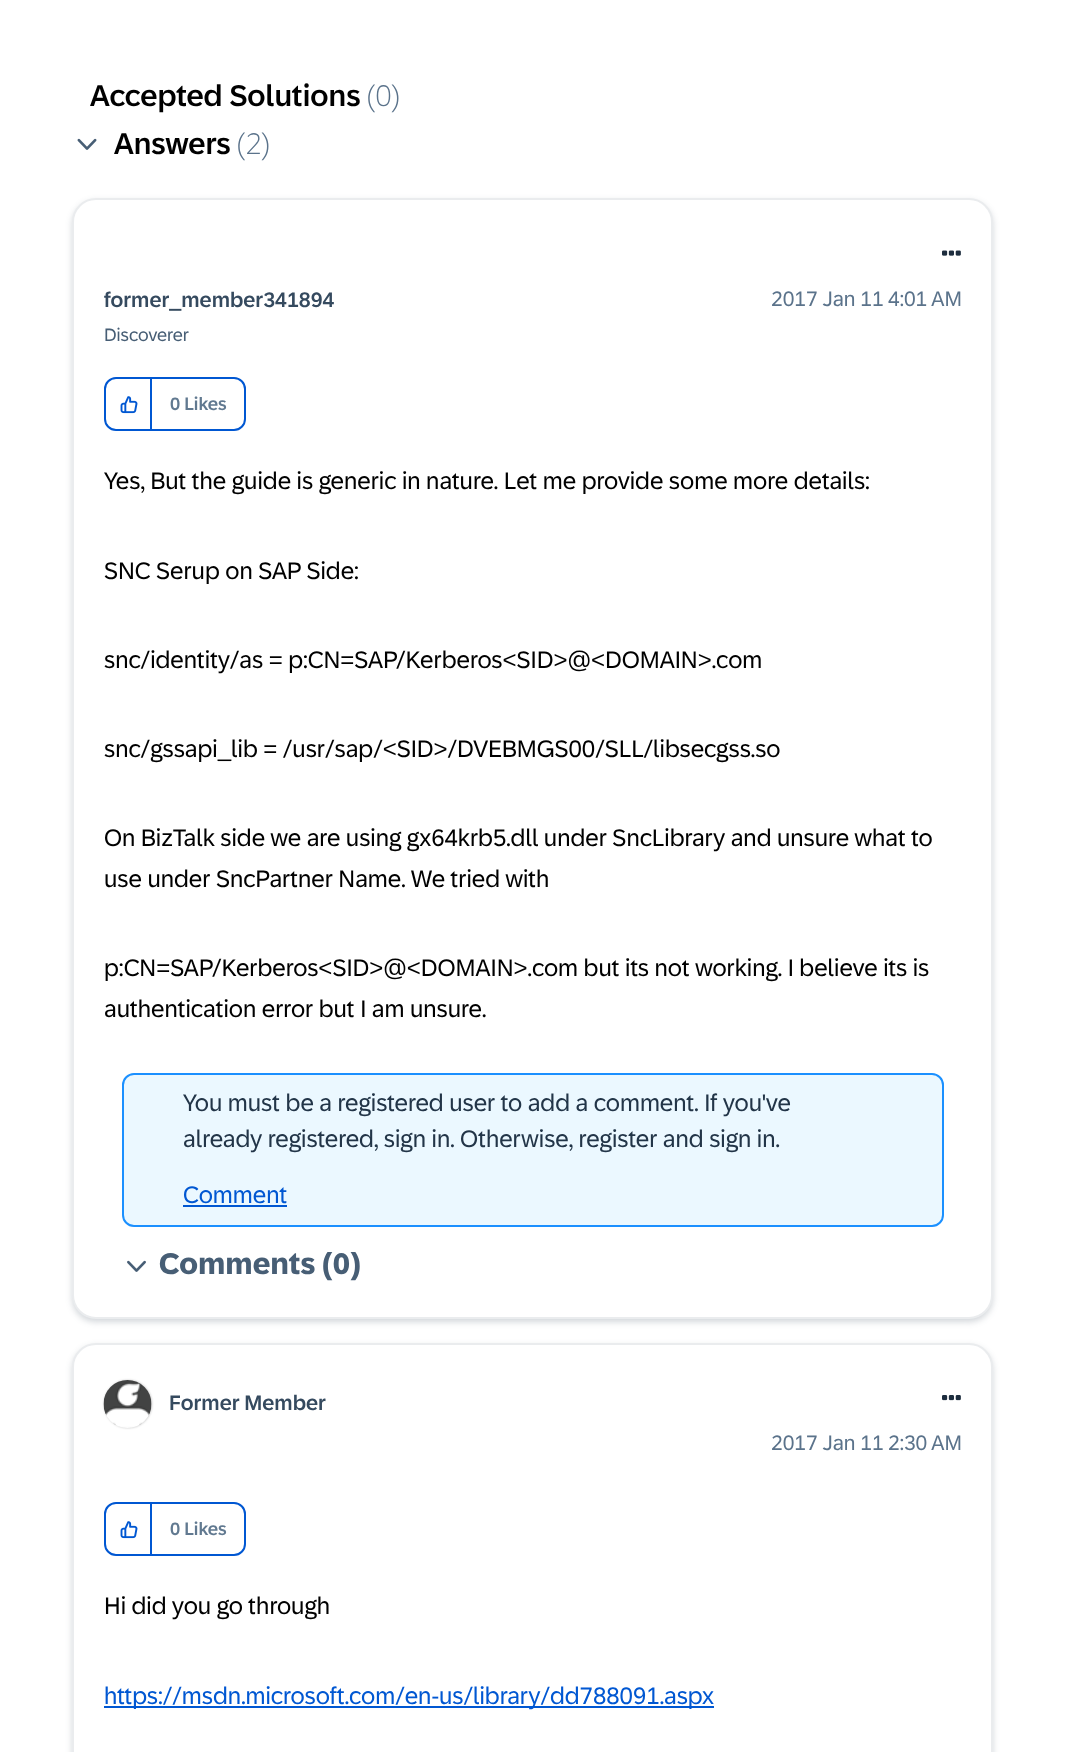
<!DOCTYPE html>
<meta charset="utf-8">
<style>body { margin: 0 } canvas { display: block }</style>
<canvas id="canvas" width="1065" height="1752"></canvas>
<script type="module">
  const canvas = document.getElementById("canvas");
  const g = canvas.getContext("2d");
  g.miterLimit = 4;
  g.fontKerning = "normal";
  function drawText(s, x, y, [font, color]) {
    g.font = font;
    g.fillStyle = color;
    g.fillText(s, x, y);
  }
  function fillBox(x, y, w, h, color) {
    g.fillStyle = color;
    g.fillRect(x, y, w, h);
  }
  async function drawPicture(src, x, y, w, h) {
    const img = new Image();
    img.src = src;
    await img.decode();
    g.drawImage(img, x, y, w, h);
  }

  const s1 = ["500 30px '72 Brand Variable'", "#000000"];
  const s2 = ["300 30px '72 Brand Variable'", "#5B738B"];
  const s3 = ["500 21px '72 Brand Variable'", "#354A5F"];
  const s4 = ["18px '72 Brand Variable'", "#475E75"];
  const s5 = ["21px '72 Brand Variable'", "#5B738B"];
  const s6 = ["500 18px '72 Brand Variable'", "#617990"];
  const s7 = ["24px '72 Brand Variable'", "#000000"];
  const s8 = ["24px '72 Brand Variable'", "#223548"];
  const s9 = ["24px '72 Brand Variable'", "#0057D2"];
  const s10 = ["bold 30px '72 Brand Variable'", "#475E75"];

  fillBox(0, 0, 1065, 1752, "#FFFFFF");
  drawText("Accepted Solutions", 90, 106, s1);
  drawText("(0)", 367, 106, s2);
  await drawPicture("pic1.png", 77, 138, 20, 12);
  drawText("Answers", 114, 154, s1);
  drawText("(2)", 237, 154, s2);
  g.fillStyle = "rgba(34, 54, 73, 0.2)";
  g.filter = "blur(3px)";
  g.beginPath();
  g.roundRect(72, 201, 921, 1121, 24);
  g.fill();
  g.filter = "none";
  g.fillStyle = "#FFFFFF";
  g.beginPath();
  g.roundRect(73, 199, 919, 1119, 23);
  g.fill();
  g.strokeStyle = "#EAECEE";
  g.lineWidth = 2;
  g.stroke();
  drawText("former_member341894", 104, 307, s3);
  drawText("Discoverer", 104, 341, s4);
  await drawPicture("pic2.png", 942, 250, 19, 6);
  drawText("2017 Jan 11", 771, 306, s5);
  drawText("4:01 AM", 888, 306, s5);
  g.beginPath();
  g.roundRect(105, 378, 140, 52, 11);
  g.strokeStyle = "#0057D2";
  g.stroke();
  fillBox(150, 378, 2, 53, "#0057D2");
  await drawPicture("pic3.png", 120, 396, 18, 18);
  drawText("0 Likes", 170, 410, s6);
  drawText("Yes, But the guide is generic in nature. Let me provide some more details:", 104, 489, s7);
  drawText("SNC Serup on SAP Side:", 104, 579, s7);
  drawText("snc/identity/as = p:CN=SAP/Kerberos<SID>@<DOMAIN>.com", 104, 668, s7);
  drawText("snc/gssapi_lib = /usr/sap/<SID>/DVEBMGS00/SLL/libsecgss.so", 104, 757, s7);
  drawText("On BizTalk side we are using gx64krb5.dll under SncLibrary and unsure what to", 104, 846, s7);
  drawText("use under SncPartner Name. We tried with", 104, 887, s7);
  drawText("p:CN=SAP/Kerberos<SID>@<DOMAIN>.com but its not working. I believe its is", 104, 976, s7);
  drawText("authentication error but I am unsure.", 104, 1017, s7);
  g.fillStyle = "#EBF8FF";
  g.beginPath();
  g.roundRect(123, 1074, 820, 152, 11);
  g.fill();
  g.strokeStyle = "#1B90FF";
  g.stroke();
  drawText("You must be a registered user to add a comment. If you've", 183, 1111, s8);
  drawText("already registered, sign in. Otherwise, register and sign in.", 183, 1147, s8);
  drawText("Comment", 183, 1203, s9);
  fillBox(183, 1205, 104, 2, "#0057D2");
  await drawPicture("pic4.png", 127, 1260, 19, 12);
  drawText("Comments (0)", 159, 1274, s10);
  g.fillStyle = "rgba(34, 54, 73, 0.2)";
  g.filter = "blur(3px)";
  g.beginPath();
  g.roundRect(72, 1346, 921, 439, 24);
  g.fill();
  g.filter = "none";
  g.fillStyle = "#FFFFFF";
  g.beginPath();
  g.roundRect(73, 1344, 919, 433, 23);
  g.fill();
  g.strokeStyle = "#EAECEE";
  g.stroke();
  g.fillStyle = "#C4C4C4";
  g.filter = "blur(1px)";
  g.beginPath();
  g.roundRect(104, 1380, 48, 48, 24);
  g.fill();
  g.filter = "none";
  await drawPicture("pic5.png", 103, 1380, 49, 48);
  drawText("Former Member", 169, 1410, s3);
  await drawPicture("pic6.png", 942, 1395, 19, 6);
  drawText("2017 Jan 11", 771, 1450, s5);
  drawText("2:30 AM", 888, 1450, s5);
  g.beginPath();
  g.roundRect(105, 1503, 140, 52, 11);
  g.strokeStyle = "#0057D2";
  g.stroke();
  fillBox(150, 1503, 2, 53, "#0057D2");
  await drawPicture("pic3.png", 120, 1521, 18, 18);
  drawText("0 Likes", 170, 1535, s6);
  drawText("Hi did you go through", 104, 1614, s7);
  fillBox(104, 1706, 610, 2, "#0057D2");
  drawText("https://msdn.microsoft.com/en-us/library/dd788091.aspx", 104, 1704, s9);
</script>
